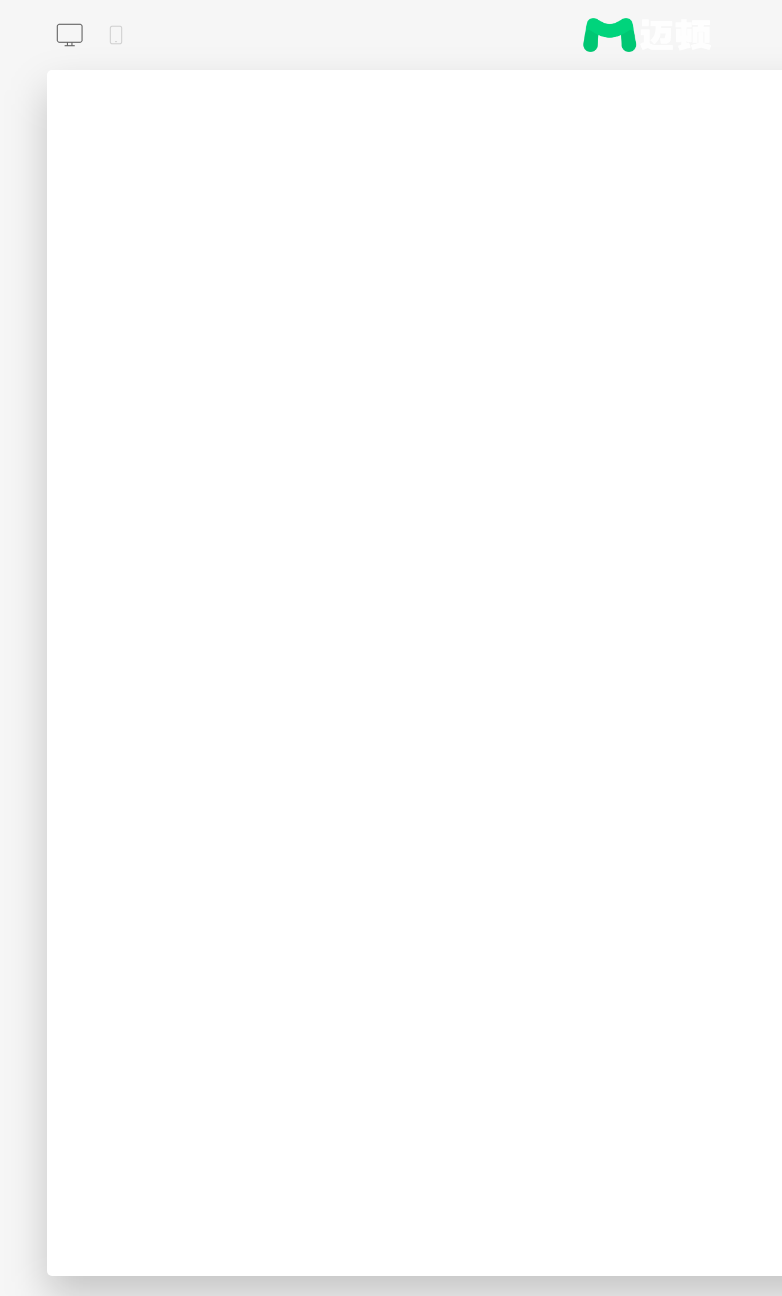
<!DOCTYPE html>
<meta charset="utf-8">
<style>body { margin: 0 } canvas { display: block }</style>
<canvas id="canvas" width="782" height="1296"></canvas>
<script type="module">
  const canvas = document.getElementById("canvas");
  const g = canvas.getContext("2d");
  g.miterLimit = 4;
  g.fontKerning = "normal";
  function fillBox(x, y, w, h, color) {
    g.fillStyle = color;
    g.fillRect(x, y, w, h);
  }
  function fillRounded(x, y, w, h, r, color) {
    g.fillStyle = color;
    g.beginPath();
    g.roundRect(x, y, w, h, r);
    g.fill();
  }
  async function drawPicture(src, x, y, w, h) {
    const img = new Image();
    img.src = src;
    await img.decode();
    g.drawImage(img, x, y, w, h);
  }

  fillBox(0, 0, 782, 1296, "#F6F6F6");
  g.fillStyle = "rgba(0, 0, 0, 0.2)";
  g.filter = "blur(20px)";
  g.beginPath();
  g.roundRect(47, 90, 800, 1206, 5);
  g.fill();
  g.filter = "none";
  await drawPicture("pic1.png", 56, 23, 27, 24);
  await drawPicture("pic2.png", 109, 25, 14, 20);
  await drawPicture("pic3.png", 583, 18, 128, 34);
  fillRounded(47, 70, 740, 1206, 5, "#FFFFFF");
</script>
